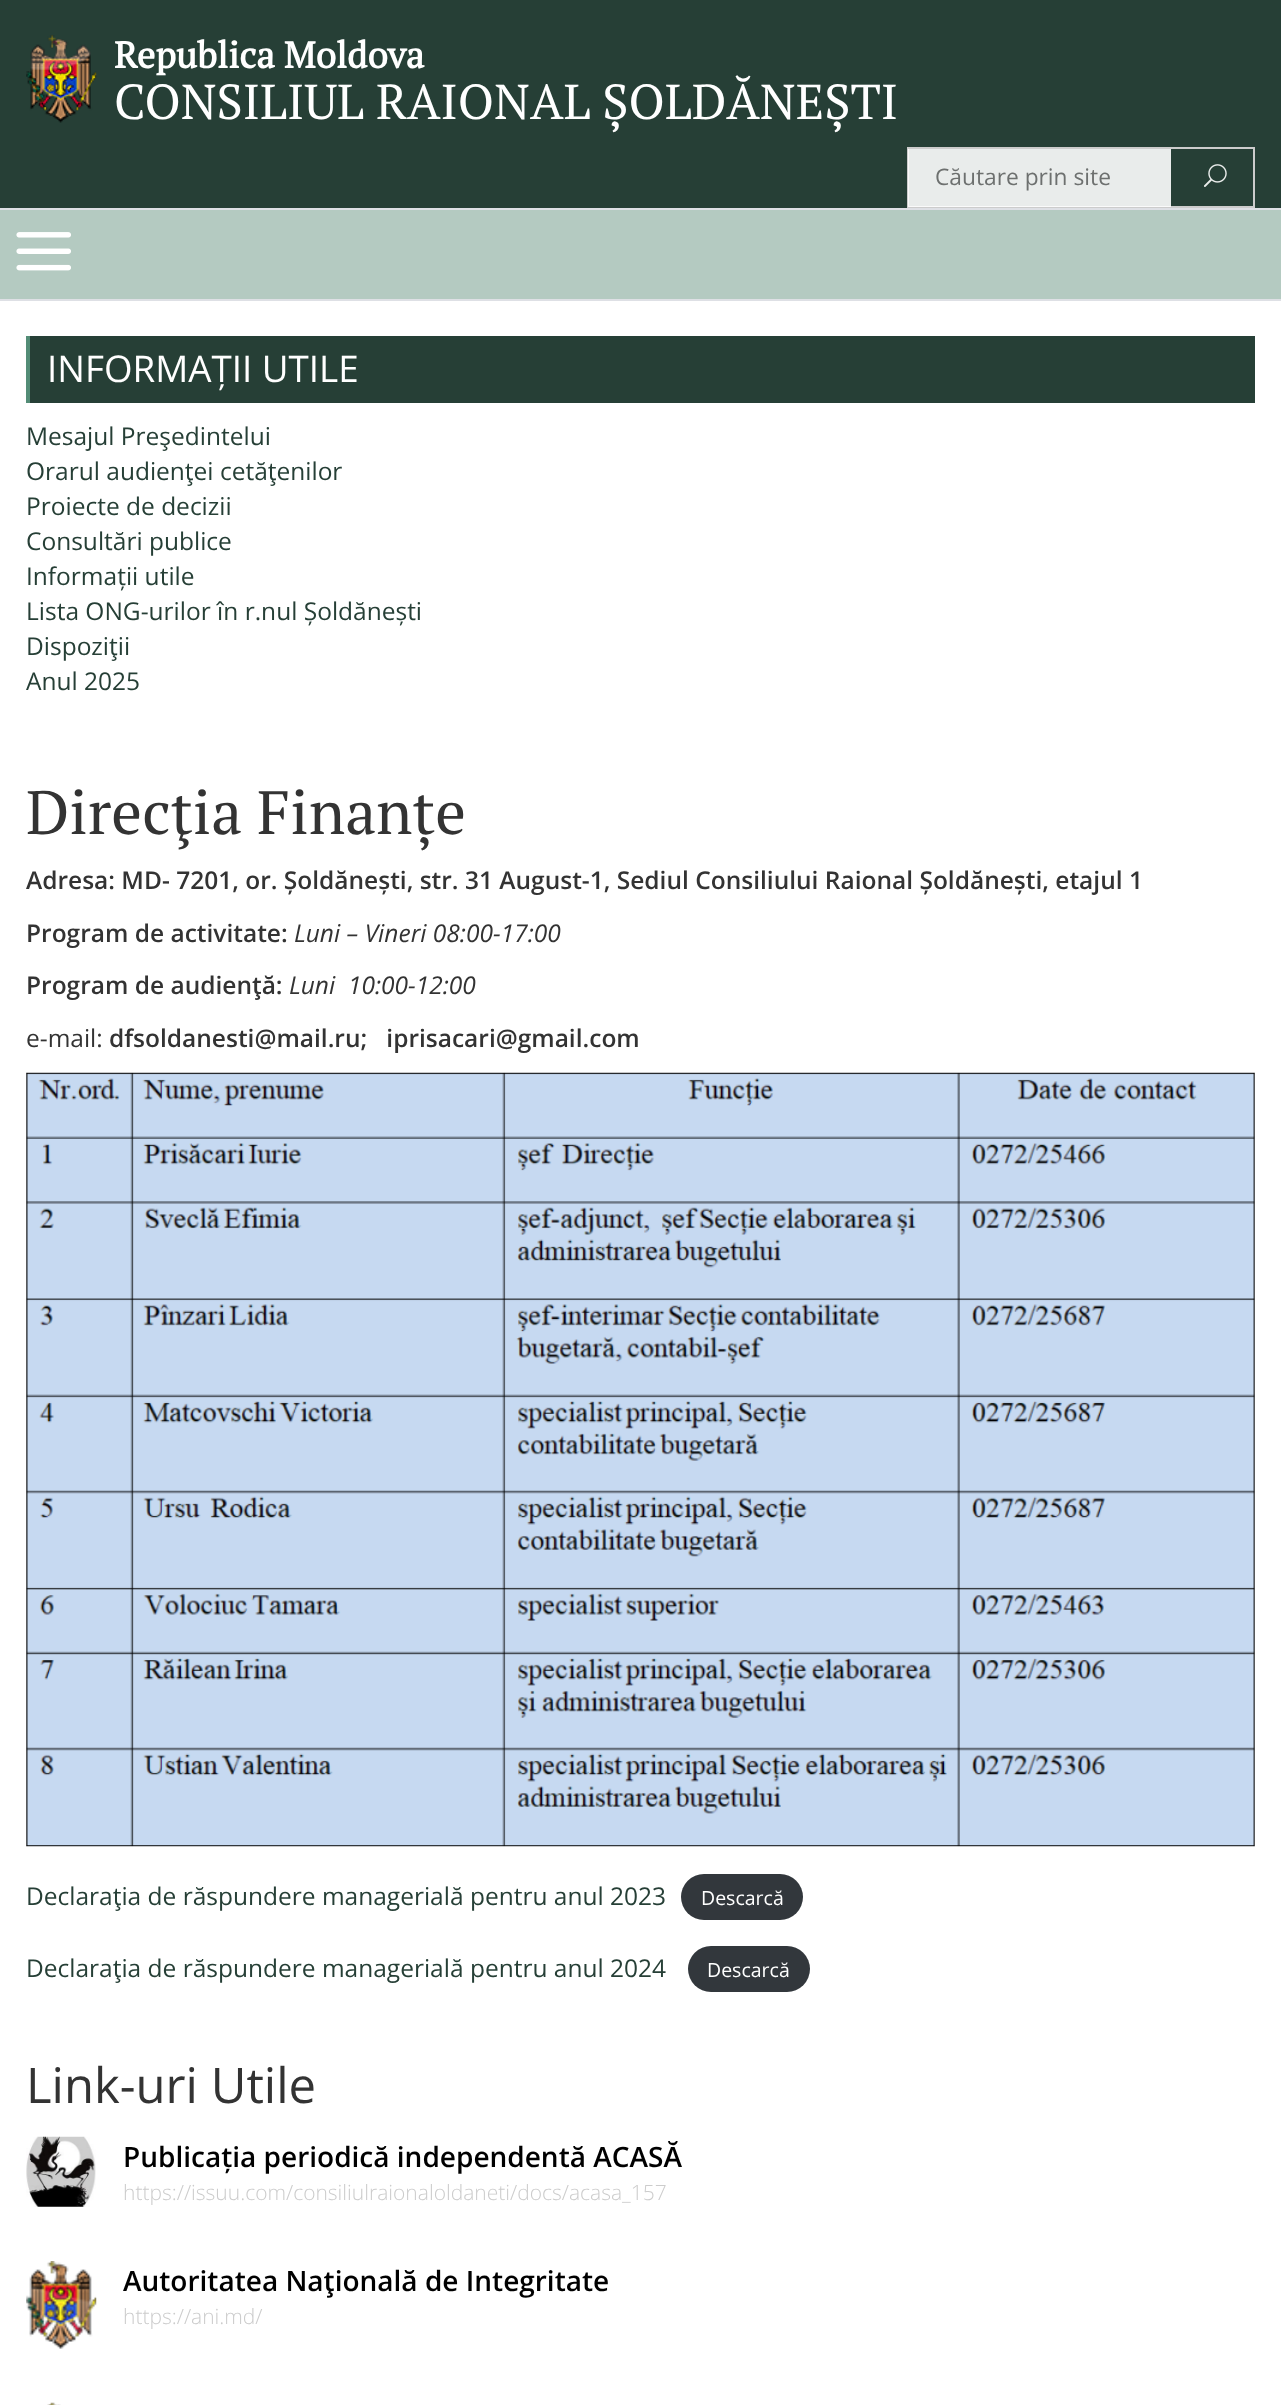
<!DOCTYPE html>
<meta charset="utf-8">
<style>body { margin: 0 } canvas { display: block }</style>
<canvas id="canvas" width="1281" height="2405"></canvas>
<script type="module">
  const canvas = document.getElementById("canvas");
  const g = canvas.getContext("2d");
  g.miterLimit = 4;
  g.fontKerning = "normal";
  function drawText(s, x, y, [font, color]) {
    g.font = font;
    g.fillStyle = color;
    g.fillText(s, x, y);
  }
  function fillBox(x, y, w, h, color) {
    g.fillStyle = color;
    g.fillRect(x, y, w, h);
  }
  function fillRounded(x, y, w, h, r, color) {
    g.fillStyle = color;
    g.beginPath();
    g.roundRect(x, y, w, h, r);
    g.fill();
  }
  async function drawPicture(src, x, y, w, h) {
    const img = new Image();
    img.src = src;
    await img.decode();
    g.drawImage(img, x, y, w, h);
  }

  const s1 = ["bold 36.75px PT Serif", "#FFFFFF"];
  const s2 = ["49px PT Serif", "#FFFFFF"];
  const s3 = ["22.75px Open Sans", "#6D706F"];
  const s4 = ["36.75px Open Sans", "#FFFFFF"];
  const s5 = ["24.5px Open Sans", "#263F36"];
  const s6 = ["61.25px PT Serif", "#333333"];
  const s7 = ["600 24.5px Open Sans", "#333333"];
  const s8 = ["italic 24.5px Open Sans", "#333333"];
  const s9 = ["24.5px Open Sans", "#333333"];
  const s10 = ["19.5px Open Sans", "#FFFFFF"];
  const s11 = ["49px Open Sans", "#333333"];
  const s12 = ["600 28px Open Sans", "#000000"];
  const s13 = ["300 21px Open Sans", "#CCCCCC"];

  fillBox(0, 0, 1281, 2405, "#FFFFFF");
  fillBox(0, 0, 1281, 208, "#263F36");
  await drawPicture("pic1.png", 26, 35, 71, 88);
  drawText("Republica Moldova", 114, 68, s1);
  drawText("CONSILIUL RAIONAL ȘOLDĂNEȘTI", 114, 119, s2);
  g.strokeStyle = "#CCCCCC";
  g.lineWidth = 2;
  g.strokeRect(908, 148, 346, 59);
  fillBox(908, 149, 263, 58, "rgba(255, 255, 255, 0.9)");
  drawText("Căutare prin site", 935, 185, s3);
  await drawPicture("pic2.png", 1204, 164, 23, 23);
  fillBox(0, 210, 1281, 89, "#B4CAC1");
  fillBox(0, 208, 1281, 2, "#DEE0E5");
  fillBox(0, 299, 1281, 2, "#DEE0E5");
  await drawPicture("pic3.png", 16, 232, 55, 39);
  fillBox(30, 336, 1225, 67, "#263F36");
  fillBox(26, 336, 4, 67, "#538C76");
  drawText("INFORMAȚII UTILE", 47, 382, s4);
  drawText("Mesajul Preşedintelui", 26, 445, s5);
  drawText("Orarul audienţei cetăţenilor", 26, 480, s5);
  drawText("Proiecte de decizii", 26, 515, s5);
  drawText("Consultări publice", 26, 550, s5);
  drawText("Informații utile", 26, 585, s5);
  drawText("Lista ONG-urilor în r.nul Șoldănești", 26, 620, s5);
  drawText("Dispoziţii", 26, 655, s5);
  drawText("Anul 2025", 26, 690, s5);
  drawText("Direcţia Finanțe", 26, 834, s6);
  drawText("Adresa: MD- 7201, or. Șoldănești, str. 31 August-1, Sediul Consiliului Raional Șoldănești, etajul 1", 26, 889, s7);
  drawText("Program de activitate:", 26, 942, s7);
  drawText("Luni – Vineri 08:00-17:00", 294, 942, s8);
  drawText("Program de audienţă:", 26, 994, s7);
  drawText("Luni  10:00-12:00", 289, 994, s8);
  drawText("e-mail:", 26, 1047, s9);
  drawText("dfsoldanesti@mail.ru;   iprisacari@gmail.com", 109, 1047, s7);
  await drawPicture("pic4.png", 26, 1072, 1229, 775);
  drawText("Declaraţia de răspundere managerială pentru anul 2023", 26, 1905, s5);
  fillRounded(681, 1874, 122, 46, 23, "#32373C");
  drawText("Descarcă", 701, 1905, s10);
  drawText("Declaraţia de răspundere managerială pentru anul 2024", 26, 1977, s5);
  fillRounded(688, 1946, 122, 46, 23, "#32373C");
  drawText("Descarcă", 707, 1977, s10);
  drawText("Link-uri Utile", 26, 2103, s11);
  await drawPicture("pic5.png", 26, 2136, 70, 71);
  drawText("Publicația periodică independentă ACASĂ", 123, 2167, s12);
  drawText("https://issuu.com/consiliulraionaloldaneti/docs/acasa_157", 123, 2200, s13);
  await drawPicture("pic6.png", 26, 2261, 71, 88);
  drawText("Autoritatea Naţională de Integritate", 123, 2291, s12);
  drawText("https://ani.md/", 123, 2324, s13);
  await drawPicture("pic7.png", 47, 2402, 14, 3);
</script>
